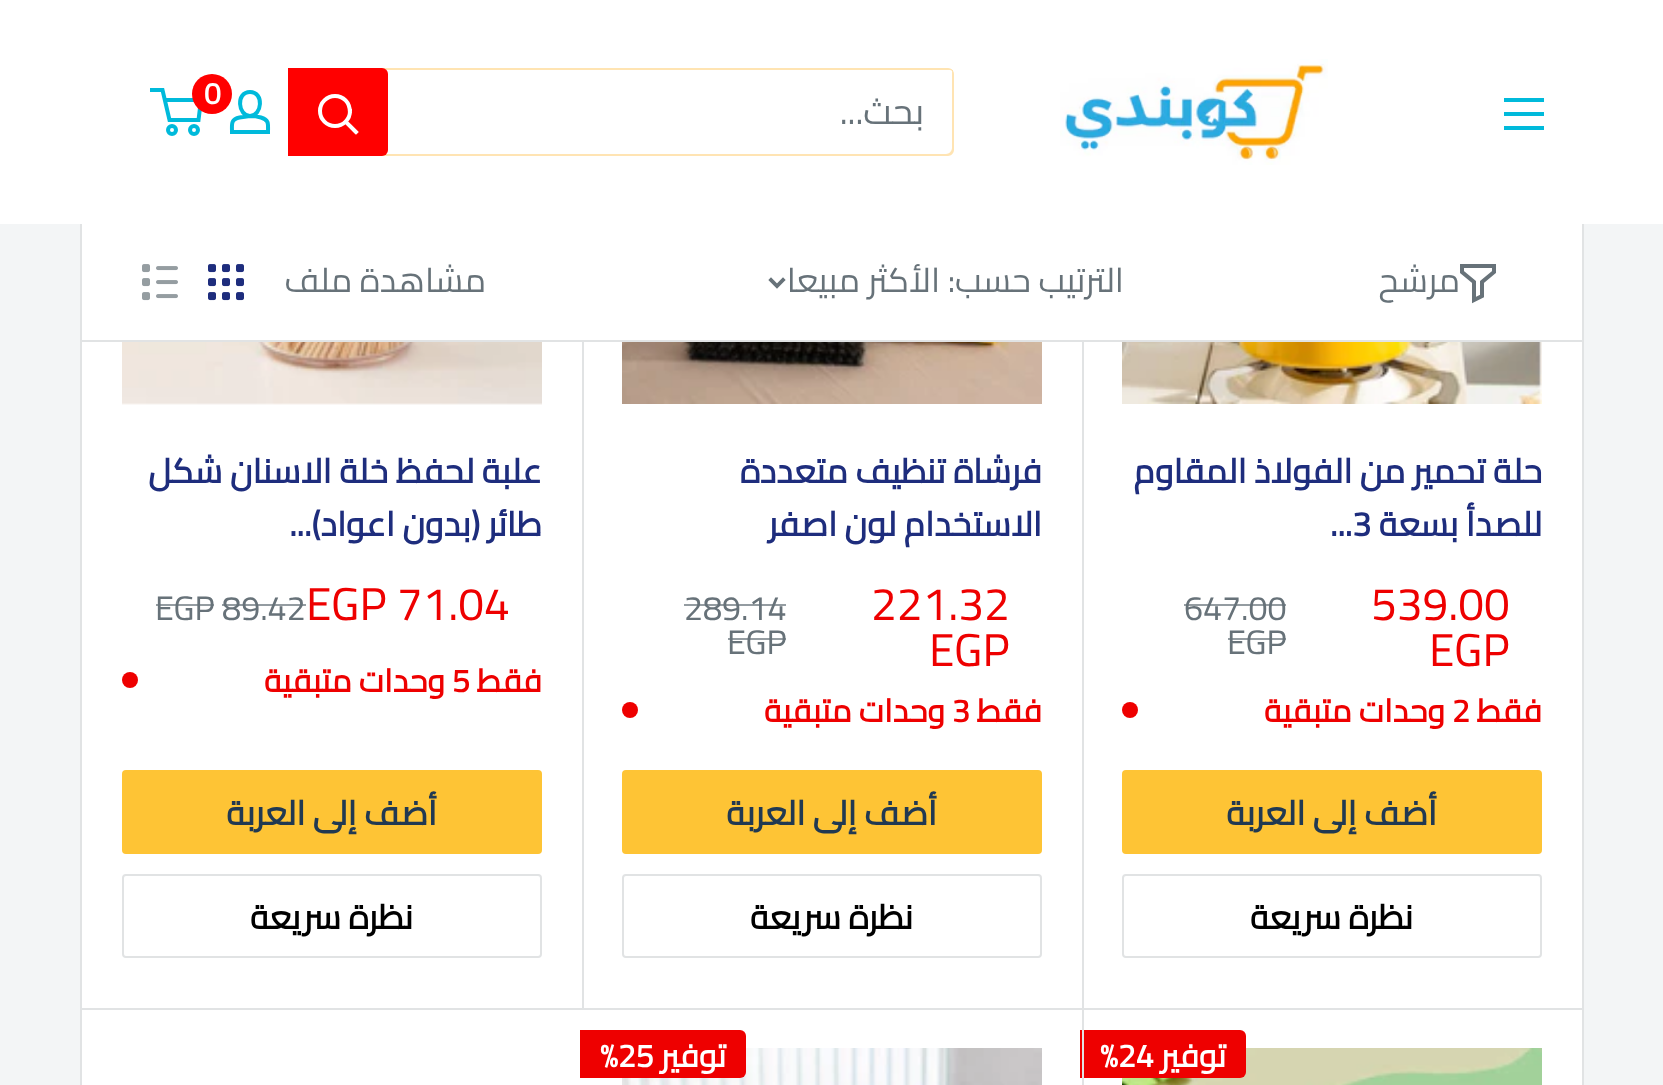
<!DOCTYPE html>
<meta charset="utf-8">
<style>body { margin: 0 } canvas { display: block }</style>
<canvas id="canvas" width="1663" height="1085"></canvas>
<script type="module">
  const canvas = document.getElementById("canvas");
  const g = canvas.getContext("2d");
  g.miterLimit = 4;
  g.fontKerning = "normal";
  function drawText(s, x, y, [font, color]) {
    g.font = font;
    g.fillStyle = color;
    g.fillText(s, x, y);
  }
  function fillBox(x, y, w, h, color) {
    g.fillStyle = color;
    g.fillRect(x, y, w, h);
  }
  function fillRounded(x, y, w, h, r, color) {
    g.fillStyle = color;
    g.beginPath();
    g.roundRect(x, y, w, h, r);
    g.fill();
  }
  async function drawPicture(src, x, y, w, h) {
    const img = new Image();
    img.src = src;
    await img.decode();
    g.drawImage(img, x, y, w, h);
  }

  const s1 = ["bold 30px Cairo", "#FFFFFF"];
  const s2 = ["36px Cairo", "#677279"];
  const s3 = ["34px Cairo", "#677279"];
  const s4 = ["bold 34px Cairo", "#1E2D7D"];
  const s5 = ["46px Cairo", "#EE0000"];
  const s6 = ["bold 32px Cairo", "#EE0000"];
  const s7 = ["bold 34px Cairo", "#213952"];
  const s8 = ["bold 34px Cairo", "#000000"];
  const s9 = ["bold 32px Cairo", "#FFFFFF"];

  fillBox(0, 0, 1663, 1085, "#F3F5F6");
  fillBox(82, 342, 1500, 743, "#FFFFFF");
  g.strokeStyle = "#E1E3E4";
  g.lineWidth = 2;
  g.strokeRect(81, -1, 1502, 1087);
  fillBox(0, 0, 1663, 224, "#FFFFFF");
  await drawPicture("pic1.png", 1060, 59, 268, 106);
  g.beginPath();
  g.moveTo(250, 116);
  g.bezierCurveTo(254, 116, 257.5, 116.5, 261, 117.5);
  g.bezierCurveTo(269.5, 120, 268, 124.5, 268, 132);
  g.lineTo(232, 132);
  g.bezierCurveTo(232, 124, 230.5, 119.5, 239.5, 117.5);
  g.closePath();
  g.moveTo(250, 116);
  g.bezierCurveTo(238, 116, 235.5, 92, 250, 92);
  g.bezierCurveTo(264.5, 92, 262, 116, 250, 116);
  g.closePath();
  g.strokeStyle = "#00BADB";
  g.lineWidth = 4;
  g.stroke();
  g.beginPath();
  g.moveTo(164.5, 100);
  g.lineTo(201, 100);
  g.lineTo(198.5, 120);
  g.lineTo(169.5, 120);
  g.lineTo(162.5, 90);
  g.lineTo(150, 90);
  g.stroke();
  g.fillStyle = "#FF0000";
  g.beginPath();
  g.arc(212, 94, 20, 0, Math.PI * 2);
  g.fill();
  drawText("0", 204, 104, s1);
  g.beginPath();
  g.arc(172, 130, 4, 0, Math.PI * 2);
  g.stroke();
  g.beginPath();
  g.arc(194, 130, 4, 0, Math.PI * 2);
  g.stroke();
  g.fillStyle = "#00BADB";
  g.beginPath();
  g.moveTo(1504, 126);
  g.lineTo(1544, 126);
  g.lineTo(1544, 130);
  g.lineTo(1504, 130);
  g.closePath();
  g.moveTo(1504, 98);
  g.lineTo(1544, 98);
  g.lineTo(1544, 102);
  g.lineTo(1504, 102);
  g.closePath();
  g.moveTo(1504, 112);
  g.lineTo(1544, 112);
  g.lineTo(1544, 116);
  g.lineTo(1504, 116);
  g.closePath();
  g.fill("evenodd");
  g.fillStyle = "#FFE4B3";
  g.beginPath();
  g.moveTo(289, 153);
  g.bezierCurveTo(290, 155, 292, 156, 294, 156);
  g.lineTo(948, 156);
  g.bezierCurveTo(951, 156, 954, 153, 954, 150);
  g.lineTo(954, 74);
  g.bezierCurveTo(954, 72, 953, 70, 951, 69);
  g.bezierCurveTo(952, 70, 952, 71, 952, 72);
  g.lineTo(952, 148);
  g.bezierCurveTo(952, 151, 949, 154, 946, 154);
  g.lineTo(292, 154);
  g.bezierCurveTo(291, 154, 290, 154, 289, 153);
  g.closePath();
  g.fill();
  g.fillStyle = "rgba(254, 165, 0, 0.3)";
  g.beginPath();
  g.moveTo(296, 70);
  g.lineTo(950, 70);
  g.lineTo(953, 71);
  g.bezierCurveTo(952, 69, 950, 68, 948, 68);
  g.lineTo(294, 68);
  g.bezierCurveTo(291, 68, 288, 71, 288, 74);
  g.lineTo(288, 150);
  g.bezierCurveTo(288, 152, 289, 154, 291, 155);
  g.bezierCurveTo(290, 154, 290, 153, 290, 152);
  g.lineTo(290, 76);
  g.bezierCurveTo(290, 73, 293, 70, 296, 70);
  g.closePath();
  g.fill();
  g.direction = "rtl";
  drawText("بحث...", 924, 124, s2);
  g.fillStyle = "#FF0000";
  g.beginPath();
  g.roundRect(288, 68, 100, 88, [0, 6, 6, 0]);
  g.fill();
  g.beginPath();
  g.moveTo(356, 132);
  g.lineTo(346, 122);
  g.strokeStyle = "#FFFFFF";
  g.lineCap = "square";
  g.stroke();
  g.beginPath();
  g.arc(335, 111, 15, 0, Math.PI * 2);
  g.stroke();
  fillBox(82, 340, 1500, 2, "#E1E3E4");
  fillBox(82, 224, 1500, 116, "#FFFFFF");
  g.beginPath();
  g.moveTo(1494, 272);
  g.lineTo(1482, 282);
  g.lineTo(1482, 296);
  g.lineTo(1474, 300);
  g.lineTo(1474, 282);
  g.lineTo(1462, 272);
  g.lineTo(1462, 266);
  g.lineTo(1494, 266);
  g.closePath();
  g.strokeStyle = "#677279";
  g.stroke();
  drawText("مرشح", 1460, 292, s3);
  drawText("الترتيب حسب: الأكثر مبيعا", 1124, 292, s3);
  g.beginPath();
  g.moveTo(783, 280);
  g.lineTo(777, 286);
  g.lineTo(771, 280);
  g.lineWidth = 3.8;
  g.stroke();
  drawText("مشاهدة ملف", 486, 292, s3);
  await drawPicture("pic2.png", 208, 264, 36, 37);
  await drawPicture("pic3.png", 142, 264, 36, 37);
  await drawPicture("pic4.png", 1122, 342, 420, 62);
  drawText("حلة تحمير من الفولاذ المقاوم", 1542, 483, s4);
  drawText("للصدأ بسعة", 1542, 536, s4);
  g.direction = "ltr";
  drawText("...3", 1330, 536, s4);
  drawText("539.00", 1371, 620, s5);
  drawText("EGP", 1429, 666, s5);
  drawText("647.00", 1184, 620, s3);
  fillBox(1184, 604, 102, 2, "rgba(103, 114, 121, 0.7)");
  drawText("EGP", 1227, 654, s3);
  fillBox(1228, 638, 58, 2, "rgba(103, 114, 121, 0.7)");
  g.direction = "rtl";
  drawText("فقط", 1542, 722, s6);
  g.direction = "ltr";
  drawText("2", 1452, 722, s6);
  g.direction = "rtl";
  drawText("وحدات متبقية", 1445, 722, s6);
  g.beginPath();
  g.arc(1130, 710, 8, 0, Math.PI * 2);
  g.fill();
  fillRounded(1122, 770, 420, 84, 4, "#FEC435");
  drawText("أضف إلى العربة", 1437, 825, s7);
  g.beginPath();
  g.roundRect(1123, 875, 418, 82, 3);
  g.strokeStyle = "#E1E3E4";
  g.lineWidth = 2;
  g.stroke();
  drawText("نظرة سريعة", 1413, 929, s8);
  fillBox(82, 1008, 1500, 2, "#E1E3E4");
  fillBox(1082, 342, 2, 666, "#E1E3E4");
  await drawPicture("pic5.png", 622, 342, 420, 62);
  drawText("فرشاة تنظيف متعددة", 1042, 483, s4);
  drawText("الاستخدام لون اصفر", 1042, 536, s4);
  g.direction = "ltr";
  drawText("221.32", 871, 620, s5);
  drawText("EGP", 929, 666, s5);
  drawText("289.14", 684, 620, s3);
  fillBox(684, 604, 102, 2, "rgba(103, 114, 121, 0.7)");
  drawText("EGP", 727, 654, s3);
  fillBox(728, 638, 58, 2, "rgba(103, 114, 121, 0.7)");
  g.direction = "rtl";
  drawText("فقط", 1042, 722, s6);
  g.direction = "ltr";
  drawText("3", 952, 722, s6);
  g.direction = "rtl";
  drawText("وحدات متبقية", 945, 722, s6);
  g.beginPath();
  g.arc(630, 710, 8, 0, Math.PI * 2);
  g.fill();
  fillRounded(622, 770, 420, 84, 4, "#FEC435");
  drawText("أضف إلى العربة", 937, 825, s7);
  g.beginPath();
  g.roundRect(623, 875, 418, 82, 3);
  g.stroke();
  drawText("نظرة سريعة", 913, 929, s8);
  fillBox(582, 342, 2, 666, "#E1E3E4");
  await drawPicture("pic6.png", 122, 342, 420, 63);
  drawText("علبة لحفظ خلة الاسنان شكل", 542, 483, s4);
  drawText("طائر (بدون اعواد)...", 542, 536, s4);
  g.direction = "ltr";
  drawText("EGP 71.04", 306, 620, s5);
  drawText("EGP 89.42", 155, 620, s3);
  fillBox(156, 604, 58, 2, "rgba(103, 114, 121, 0.7)");
  fillBox(222, 604, 84, 2, "rgba(103, 114, 121, 0.7)");
  g.direction = "rtl";
  drawText("فقط", 542, 692, s6);
  g.direction = "ltr";
  drawText("5", 452, 692, s6);
  g.direction = "rtl";
  drawText("وحدات متبقية", 445, 692, s6);
  g.beginPath();
  g.arc(130, 680, 8, 0, Math.PI * 2);
  g.fill();
  fillRounded(122, 770, 420, 84, 4, "#FEC435");
  drawText("أضف إلى العربة", 437, 825, s7);
  g.beginPath();
  g.roundRect(123, 875, 418, 82, 3);
  g.stroke();
  drawText("نظرة سريعة", 413, 929, s8);
  await drawPicture("pic7.png", 1122, 1048, 420, 37);
  g.fillStyle = "#EE0000";
  g.beginPath();
  g.roundRect(1080, 1030, 166, 48, [0, 6, 6, 0]);
  g.fill();
  drawText("توفير", 1226, 1067, s9);
  g.direction = "ltr";
  drawText("%24", 1100, 1067, s9);
  fillBox(1082, 1008, 2, 77, "#E1E3E4");
  await drawPicture("pic8.png", 622, 1048, 420, 37);
  g.fillStyle = "#EE0000";
  g.beginPath();
  g.roundRect(580, 1030, 166, 48, [0, 6, 6, 0]);
  g.fill();
  g.direction = "rtl";
  drawText("توفير", 726, 1067, s9);
  g.direction = "ltr";
  drawText("%25", 600, 1067, s9);
</script>
